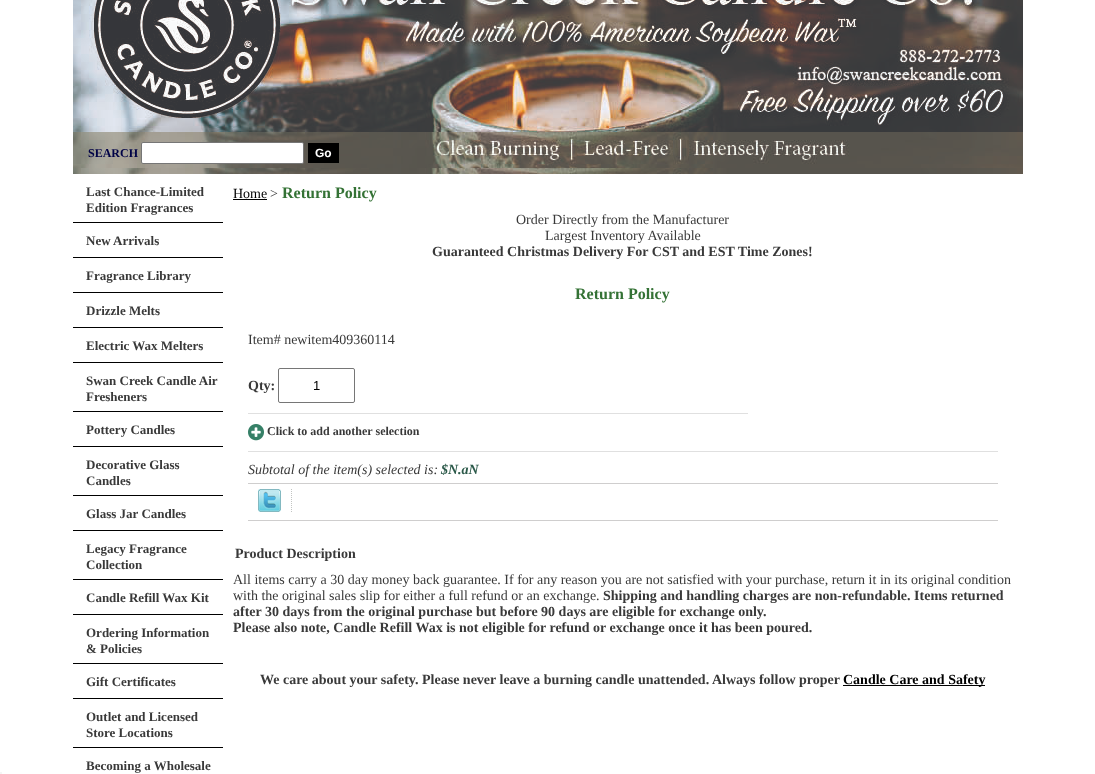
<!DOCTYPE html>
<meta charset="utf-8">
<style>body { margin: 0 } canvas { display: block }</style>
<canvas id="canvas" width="1095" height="774"></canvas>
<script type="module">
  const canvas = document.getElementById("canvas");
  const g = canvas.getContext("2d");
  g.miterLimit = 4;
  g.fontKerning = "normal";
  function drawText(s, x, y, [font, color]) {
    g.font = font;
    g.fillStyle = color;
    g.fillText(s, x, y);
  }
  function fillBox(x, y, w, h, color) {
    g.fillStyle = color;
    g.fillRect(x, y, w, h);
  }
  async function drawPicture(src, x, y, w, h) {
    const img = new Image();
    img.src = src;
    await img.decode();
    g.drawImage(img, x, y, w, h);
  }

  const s1 = ["bold 12px Liberation Serif", "#000246"];
  const s2 = ["bold 12px Liberation Sans", "#FFFFFF"];
  const s3 = ["bold 13px Liberation Serif", "#393939"];
  const s4 = ["14px Liberation Serif", "#000000"];
  const s5 = ["14px Liberation Serif", "#393939"];
  const s6 = ["bold 16px Liberation Serif", "#347235"];
  const s7 = ["bold 14px Liberation Serif", "#393939"];
  const s8 = ["13px Liberation Sans", "#000000"];
  const s9 = ["bold 12px Liberation Serif", "#393939"];
  const s10 = ["italic 14px Liberation Serif", "#393939"];
  const s11 = ["italic bold 14px Liberation Serif", "#2B5949"];
  const s12 = ["bold 14px Liberation Serif", "#000000"];

  fillBox(0, 0, 1095, 774, "#FFFFFF");
  fillBox(0, 772, 2, 2, "#F5F5F5");
  await drawPicture("pic1.png", 73, 0, 950, 132);
  await drawPicture("pic2.png", 73, 132, 950, 42);
  drawText("SEARCH", 88, 157, s1);
  g.fillStyle = "#FFFFFF";
  g.beginPath();
  g.roundRect(141.5, 142.5, 162, 21, 1.5);
  g.fill();
  g.strokeStyle = "#767676";
  g.stroke();
  fillBox(308, 143, 31, 20, "#000000");
  drawText("Go", 315, 157, s2);
  fillBox(73, 222, 150, 1, "#000000");
  drawText("Last Chance-Limited", 86, 196, s3);
  drawText("Edition Fragrances", 86, 212, s3);
  fillBox(73, 257, 150, 1, "#000000");
  drawText("New Arrivals", 86, 245, s3);
  fillBox(73, 292, 150, 1, "#000000");
  drawText("Fragrance Library", 86, 280, s3);
  fillBox(73, 327, 150, 1, "#000000");
  drawText("Drizzle Melts", 86, 315, s3);
  fillBox(73, 362, 150, 1, "#000000");
  drawText("Electric Wax Melters", 86, 350, s3);
  fillBox(73, 411, 150, 1, "#000000");
  drawText("Swan Creek Candle Air", 86, 385, s3);
  drawText("Fresheners", 86, 401, s3);
  fillBox(73, 446, 150, 1, "#000000");
  drawText("Pottery Candles", 86, 434, s3);
  fillBox(73, 495, 150, 1, "#000000");
  drawText("Decorative Glass", 86, 469, s3);
  drawText("Candles", 86, 485, s3);
  fillBox(73, 530, 150, 1, "#000000");
  drawText("Glass Jar Candles", 86, 518, s3);
  fillBox(73, 579, 150, 1, "#000000");
  drawText("Legacy Fragrance", 86, 553, s3);
  drawText("Collection", 86, 569, s3);
  fillBox(73, 614, 150, 1, "#000000");
  drawText("Candle Refill Wax Kit", 86, 602, s3);
  fillBox(73, 663, 150, 1, "#000000");
  drawText("Ordering Information", 86, 637, s3);
  drawText("& Policies", 86, 653, s3);
  fillBox(73, 698, 150, 1, "#000000");
  drawText("Gift Certificates", 86, 686, s3);
  fillBox(73, 747, 150, 1, "#000000");
  drawText("Outlet and Licensed", 86, 721, s3);
  drawText("Store Locations", 86, 737, s3);
  drawText("Becoming a Wholesale", 86, 770, s3);
  drawText("Home", 233, 198, s4);
  fillBox(233, 199, 34, 1, "#000000");
  drawText(">", 270, 198, s5);
  drawText("Return Policy", 282, 198, s6);
  drawText("Order Directly from the Manufacturer", 516, 224, s5);
  drawText("Largest Inventory Available", 545, 240, s5);
  drawText("Guaranteed Christmas Delivery For CST and EST Time Zones!", 432, 256, s7);
  drawText("Return Policy", 575, 299, s6);
  drawText("Item# newitem409360114", 248, 344, s5);
  fillBox(248, 413, 500, 1, "#E0E0E0");
  drawText("Qty:", 248, 390, s7);
  g.beginPath();
  g.roundRect(278.5, 368.5, 76, 34, 1.5);
  g.stroke();
  drawText("1", 313, 390, s8);
  await drawPicture("pic3.png", 248, 424, 16, 17);
  drawText("Click to add another selection", 267, 435, s9);
  fillBox(248, 451, 750, 1, "#E0E0E0");
  drawText("Subtotal of the item(s) selected is:", 248, 474, s10);
  drawText("$N.aN", 441, 474, s11);
  fillBox(248, 483, 750, 1, "#CFCECE");
  await drawPicture("pic4.png", 258, 489, 23, 23);
  await drawPicture("pic5.png", 291, 489, 1, 23);
  fillBox(248, 520, 750, 1, "#CFCECE");
  drawText("Product Description", 235, 558, s7);
  drawText("All items carry a 30 day money back guarantee. If for any reason you are not satisfied with your purchase, return it in its original condition", 233, 584, s5);
  drawText("with the original sales slip for either a full refund or an exchange.", 233, 600, s5);
  drawText("Shipping and handling charges are non-refundable. Items returned", 603, 600, s7);
  drawText("after 30 days from the original purchase but before 90 days are eligible for exchange only.", 233, 616, s7);
  drawText("Please also note, Candle Refill Wax is not eligible for refund or exchange once it has been poured.", 233, 632, s7);
  drawText("We care about your safety. Please never leave a burning candle unattended. Always follow proper", 260, 684, s7);
  fillBox(843, 685, 142, 1, "#000000");
  drawText("Candle Care and Safety", 843, 684, s12);
</script>
